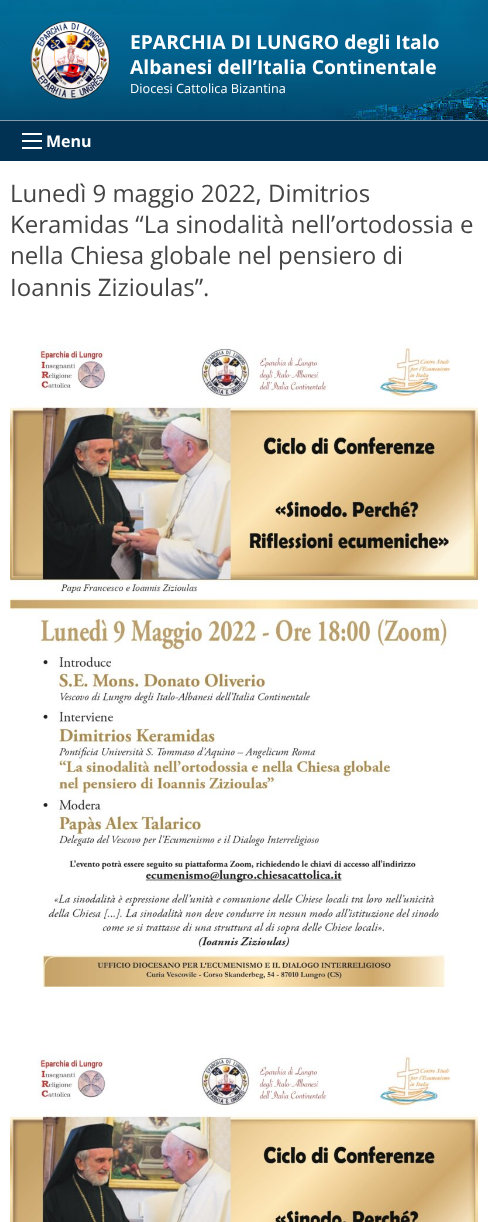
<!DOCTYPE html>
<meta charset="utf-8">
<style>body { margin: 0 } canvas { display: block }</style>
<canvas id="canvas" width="488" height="1222"></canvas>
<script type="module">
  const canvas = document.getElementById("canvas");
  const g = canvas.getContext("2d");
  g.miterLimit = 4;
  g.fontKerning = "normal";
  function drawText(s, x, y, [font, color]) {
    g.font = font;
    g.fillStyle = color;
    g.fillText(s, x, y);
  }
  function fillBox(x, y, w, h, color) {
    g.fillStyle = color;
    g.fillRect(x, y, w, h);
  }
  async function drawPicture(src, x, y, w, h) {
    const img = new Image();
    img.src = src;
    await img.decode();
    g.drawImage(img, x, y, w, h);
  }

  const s1 = ["bold 19.25px Open Sans", "#FFFFFF"];
  const s2 = ["12.75px Open Sans", "#FFFFFF"];
  const s3 = ["bold 16px Open Sans", "#FFFFFF"];
  const s4 = ["24px Open Sans", "#444444"];

  fillBox(0, 0, 488, 1222, "#FFFFFF");
  await drawPicture("pic1.png", 0, 0, 488, 120);
  await drawPicture("pic2.png", 30, 20, 80, 80);
  drawText("EPARCHIA DI LUNGRO degli Italo", 130, 49, s1);
  drawText("Albanesi dell’Italia Continentale", 130, 74, s1);
  drawText("Diocesi Cattolica Bizantina", 130, 93, s2);
  fillBox(0, 121, 488, 40, "#013253");
  fillBox(0, 120, 488, 1, "#839BAB");
  fillBox(22, 147, 20, 2, "#FEFEFE");
  fillBox(22, 140, 20, 2, "#FEFEFE");
  fillBox(22, 133, 20, 2, "#FEFEFE");
  drawText("Menu", 46, 147, s3);
  drawText("Lunedì 9 maggio 2022, Dimitrios", 10, 202, s4);
  drawText("Keramidas “La sinodalità nell’ortodossia e", 10, 233, s4);
  drawText("nella Chiesa globale nel pensiero di", 10, 264, s4);
  drawText("Ioannis Zizioulas”.", 10, 296, s4);
  await drawPicture("pic3.png", 10, 345, 468, 642);
  await drawPicture("pic4.png", 10, 1054, 468, 168);
</script>
